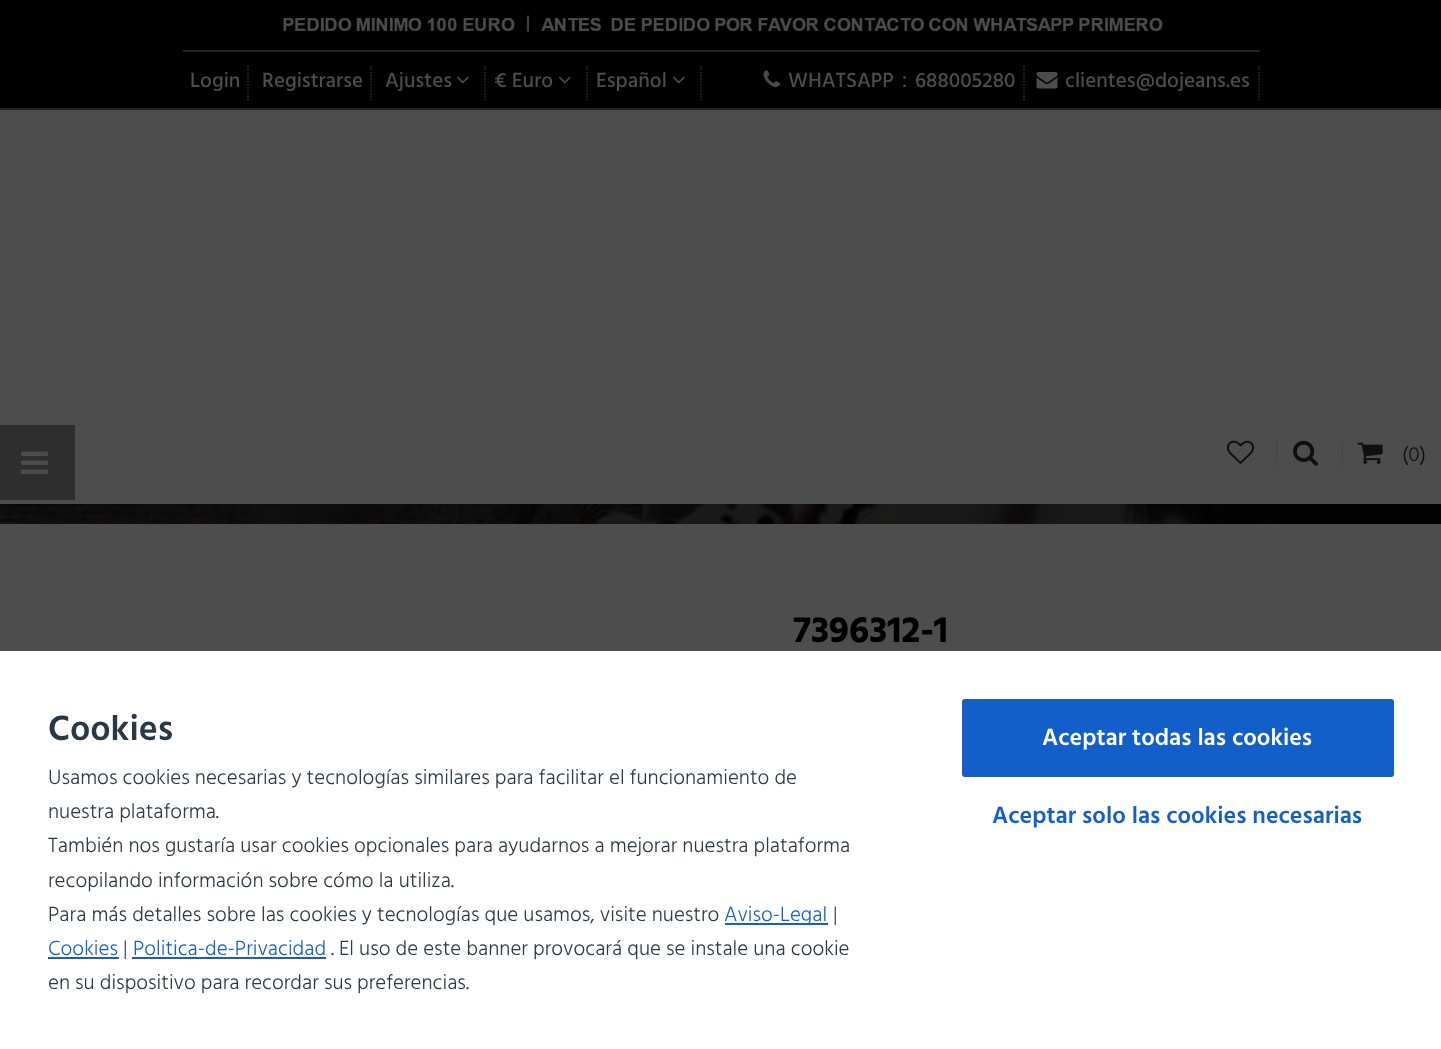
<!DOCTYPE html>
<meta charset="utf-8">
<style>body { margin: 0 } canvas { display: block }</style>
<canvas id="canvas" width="1441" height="1049"></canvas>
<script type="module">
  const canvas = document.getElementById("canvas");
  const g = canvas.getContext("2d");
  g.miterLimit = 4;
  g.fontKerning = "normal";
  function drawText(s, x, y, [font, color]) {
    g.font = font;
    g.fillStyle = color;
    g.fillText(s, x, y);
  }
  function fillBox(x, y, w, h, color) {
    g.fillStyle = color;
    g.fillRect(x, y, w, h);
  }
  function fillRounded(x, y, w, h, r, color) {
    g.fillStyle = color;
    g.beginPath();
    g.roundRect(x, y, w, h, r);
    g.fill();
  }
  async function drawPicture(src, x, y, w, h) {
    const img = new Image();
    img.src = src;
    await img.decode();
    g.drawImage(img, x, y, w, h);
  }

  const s1 = ["500 21px Hind", "#4D4D4D"];
  const s2 = ["500 21px WenQuanYi Zen Hei", "#4D4D4D"];
  const s3 = ["300 21px Hind", "#0F0F0F"];
  const s4 = ["bold 37.5px Hind", "#000000"];
  const s5 = ["600 36px Hind", "#2A3846"];
  const s6 = ["300 21px Hind", "#2A3846"];
  const s7 = ["300 21px Hind", "#125FCA"];
  const s8 = ["600 24px Hind", "#FFFFFF"];
  const s9 = ["600 24px Hind", "#125FCA"];

  fillBox(0, 0, 1441, 1049, "#4D4D4D");
  fillBox(0, 0, 1441, 108, "#000000");
  fillBox(0, 108, 1441, 2, "#212121");
  fillBox(183, 50, 1077, 2, "#252525");
  await drawPicture("pic1.png", 283, 15, 880, 17);
  g.beginPath();
  g.moveTo(248, 66);
  g.lineTo(248, 100.5);
  g.strokeStyle = "#2E2E2E";
  g.lineWidth = 1.5;
  g.setLineDash([1.5, 1.5]);
  g.stroke();
  drawText("Login", 190, 87, s1);
  g.beginPath();
  g.moveTo(371, 66);
  g.lineTo(371, 100.5);
  g.stroke();
  drawText("Registrarse", 262, 87, s1);
  g.beginPath();
  g.moveTo(485, 66);
  g.lineTo(485, 100.5);
  g.stroke();
  drawText("Ajustes", 385, 87, s1);
  await drawPicture("pic2.png", 456, 76, 13, 8);
  g.beginPath();
  g.moveTo(587, 66);
  g.lineTo(587, 100.5);
  g.stroke();
  drawText("€ Euro", 494, 87, s1);
  await drawPicture("pic2.png", 558, 76, 13, 8);
  g.beginPath();
  g.moveTo(701, 66);
  g.lineTo(701, 100.5);
  g.stroke();
  drawText("Español", 596, 87, s1);
  await drawPicture("pic2.png", 672, 76, 13, 8);
  g.beginPath();
  g.moveTo(1024, 66);
  g.lineTo(1024, 100.5);
  g.stroke();
  await drawPicture("pic3.png", 763, 70, 17, 17);
  drawText("WHATSAPP", 788, 87, s1);
  drawText("：", 894, 87, s2);
  drawText("688005280", 915, 87, s1);
  g.beginPath();
  g.moveTo(1259, 66);
  g.lineTo(1259, 100.5);
  g.stroke();
  await drawPicture("pic4.png", 1036, 72, 22, 17);
  drawText("clientes@dojeans.es", 1065, 87, s1);
  fillBox(0, 425, 75, 75, "#2E2E2E");
  await drawPicture("pic5.png", 21, 451, 27, 23);
  g.beginPath();
  g.moveTo(1277, 439.5);
  g.lineTo(1277, 468);
  g.strokeStyle = "#444444";
  g.stroke();
  await drawPicture("pic6.png", 1227, 440, 27, 24);
  g.beginPath();
  g.moveTo(1342, 439.5);
  g.lineTo(1342, 468);
  g.stroke();
  await drawPicture("pic7.png", 1293, 440, 25, 26);
  await drawPicture("pic8.png", 1357, 442, 26, 22);
  drawText("(0)", 1402, 461, s3);
  await drawPicture("pic9.png", 0, 504, 1441, 20);
  drawText("7396312-1", 793, 642, s4);
  fillBox(0, 651, 1441, 398, "#FFFFFF");
  drawText("Cookies", 48, 740, s5);
  drawText("Usamos cookies necesarias y tecnologías similares para facilitar el funcionamiento de", 48, 784, s6);
  drawText("nuestra plataforma.", 48, 818, s6);
  drawText("También nos gustaría usar cookies opcionales para ayudarnos a mejorar nuestra plataforma", 48, 852, s6);
  drawText("recopilando información sobre cómo la utiliza.", 48, 887, s6);
  drawText("Para más detalles sobre las cookies y tecnologías que usamos, visite nuestro", 48, 921, s6);
  fillBox(725, 923, 103, 2, "#125FCA");
  drawText("Aviso-Legal", 724, 921, s7);
  drawText("|", 833, 921, s6);
  drawText("Cookies", 48, 955, s7);
  fillBox(48, 957, 71, 2, "#125FCA");
  drawText("|", 123, 955, s6);
  drawText("Politica-de-Privacidad", 133, 955, s7);
  fillBox(132, 957, 194, 2, "#125FCA");
  drawText(". El uso de este banner provocará que se instale una cookie", 331, 955, s6);
  drawText("en su dispositivo para recordar sus preferencias.", 48, 989, s6);
  fillRounded(962, 699, 432, 78, 3, "#125FCA");
  drawText("Aceptar todas las cookies", 1042, 745, s8);
  drawText("Aceptar solo las cookies necesarias", 992, 823, s9);
</script>
